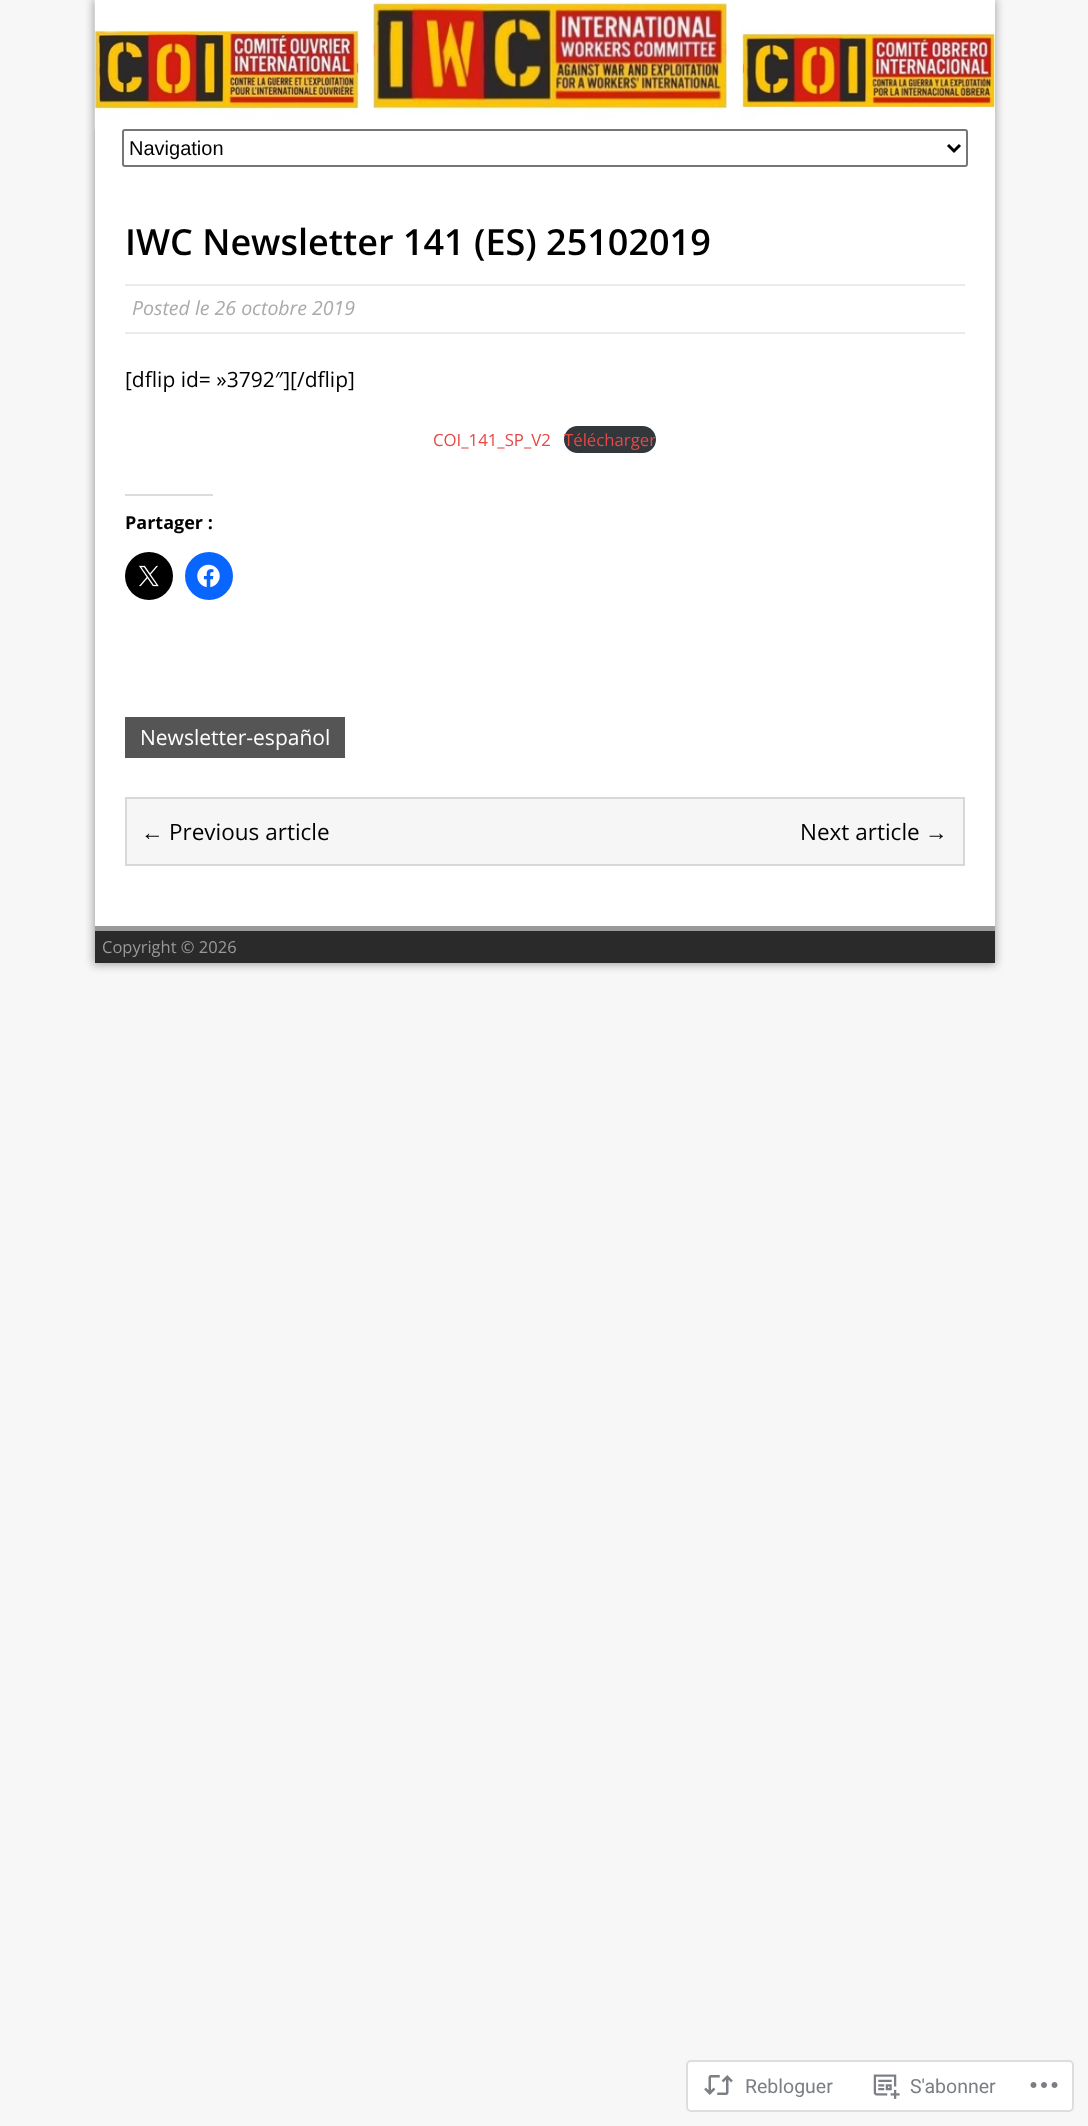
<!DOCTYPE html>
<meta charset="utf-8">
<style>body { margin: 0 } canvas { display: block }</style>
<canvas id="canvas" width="1088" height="2126"></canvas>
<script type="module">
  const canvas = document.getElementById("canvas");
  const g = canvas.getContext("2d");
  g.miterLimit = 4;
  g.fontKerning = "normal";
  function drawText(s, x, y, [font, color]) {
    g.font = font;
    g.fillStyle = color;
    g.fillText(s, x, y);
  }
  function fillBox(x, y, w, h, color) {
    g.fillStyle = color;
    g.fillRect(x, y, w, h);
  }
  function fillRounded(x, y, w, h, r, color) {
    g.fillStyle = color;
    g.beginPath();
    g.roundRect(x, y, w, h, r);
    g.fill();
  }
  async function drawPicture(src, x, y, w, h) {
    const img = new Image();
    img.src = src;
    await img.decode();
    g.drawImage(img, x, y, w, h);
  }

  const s1 = ["20px Liberation Sans", "#000000"];
  const s2 = ["600 36px Open Sans", "#000000"];
  const s3 = ["italic 19.5px Open Sans", "#AAAAAA"];
  const s4 = ["21px Open Sans", "#000000"];
  const s5 = ["16.75px Open Sans", "#E64946"];
  const s6 = ["bold 18px Open Sans", "#000000"];
  const s7 = ["21px Open Sans", "#FFFFFF"];
  const s8 = ["22.5px Liberation Sans", "#000000"];
  const s9 = ["22.5px Open Sans", "#000000"];
  const s10 = ["16.5px Open Sans", "#999999"];
  const s11 = ["19.5px Roboto", "#7B7E84"];

  fillBox(0, 0, 1088, 2126, "#F7F7F7");
  g.fillStyle = "#A8A8A8";
  g.filter = "blur(4px)";
  g.beginPath();
  g.rect(93, -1, 903, 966);
  g.fill();
  g.filter = "none";
  fillBox(95, 0, 900, 926, "#FFFFFF");
  await drawPicture("pic1.png", 94, 0, 901, 129);
  g.beginPath();
  g.roundRect(123, 130, 844, 36, 2);
  g.strokeStyle = "#767676";
  g.lineWidth = 2;
  g.stroke();
  g.beginPath();
  g.moveTo(948, 145);
  g.lineTo(954, 151);
  g.lineTo(960, 145);
  g.strokeStyle = "#000000";
  g.lineWidth = 3;
  g.stroke();
  drawText("Navigation", 129, 155, s1);
  drawText("IWC Newsletter 141 (ES) 25102019", 125, 255, s2);
  fillBox(125, 284, 840, 2, "#EBEBEB");
  fillBox(125, 332, 840, 2, "#EBEBEB");
  drawText("Posted le 26 octobre 2019", 132, 315, s3);
  drawText("[dflip id= »3792″][/dflip]", 125, 387, s4);
  drawText("COI_141_SP_V2", 433, 446, s5);
  fillRounded(564, 426, 92, 27, 13.5, "#32373C");
  drawText("Télécharger", 564, 446, s5);
  fillBox(125, 494, 88, 2, "#DCDCDE");
  drawText("Partager :", 125, 529, s6);
  g.beginPath();
  g.arc(149, 576, 24, 0, Math.PI * 2);
  g.fill();
  await drawPicture("pic2.png", 139, 565, 20, 22);
  g.fillStyle = "#0866FF";
  g.beginPath();
  g.arc(209, 576, 24, 0, Math.PI * 2);
  g.fill();
  await drawPicture("pic3.png", 197, 564, 23, 24);
  fillBox(125, 717, 220, 41, "#555555");
  drawText("Newsletter-español", 140, 745, s7);
  g.fillStyle = "#F6F6F6";
  g.beginPath();
  g.rect(126, 798, 838, 67);
  g.fill();
  g.strokeStyle = "#D7D8D8";
  g.lineWidth = 2;
  g.stroke();
  drawText("←", 141, 840, s8);
  drawText("Previous article", 169, 840, s9);
  drawText("Next article", 800, 840, s9);
  drawText("→", 925, 840, s8);
  fillBox(95, 931, 900, 32, "#2A2A2A");
  fillBox(95, 926, 900, 5, "#999999");
  drawText("Copyright © 2026", 102, 953, s10);
  g.fillStyle = "#FFFFFF";
  g.beginPath();
  g.roundRect(687, 2061, 386, 50, 4);
  g.fill();
  g.strokeStyle = "#DDDDDF";
  g.stroke();
  await drawPicture("pic4.png", 704, 2075, 29, 20);
  drawText("Rebloguer", 745, 2093, s11);
  await drawPicture("pic5.png", 873, 2074, 27, 25);
  drawText("S'abonner", 910, 2093, s11);
  await drawPicture("pic6.png", 1030, 2082, 28, 6);
</script>
